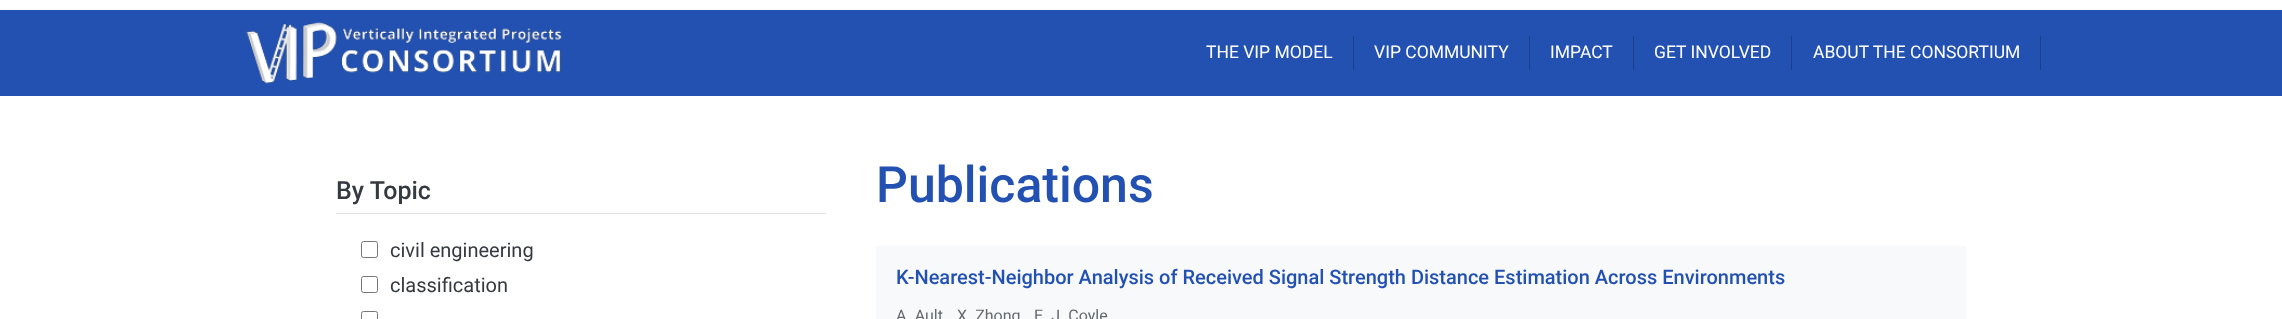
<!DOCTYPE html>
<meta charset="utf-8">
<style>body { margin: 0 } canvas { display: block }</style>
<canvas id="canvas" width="2282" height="319"></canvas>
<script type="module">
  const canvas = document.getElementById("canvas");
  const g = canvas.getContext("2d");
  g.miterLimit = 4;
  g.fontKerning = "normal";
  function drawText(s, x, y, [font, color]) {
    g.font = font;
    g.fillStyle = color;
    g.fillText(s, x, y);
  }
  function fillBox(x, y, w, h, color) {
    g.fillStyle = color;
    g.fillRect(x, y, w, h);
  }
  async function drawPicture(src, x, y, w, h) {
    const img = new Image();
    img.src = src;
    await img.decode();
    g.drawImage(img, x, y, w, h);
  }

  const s1 = ["17.5px Roboto", "#FFFFFF"];
  const s2 = ["500 25px Roboto", "#343A40"];
  const s3 = ["20px Roboto", "#343A40"];
  const s4 = ["500 50px Roboto", "#2251B2"];
  const s5 = ["500 20px Roboto", "#2251B2"];
  const s6 = ["16px Roboto", "#656A6F"];

  fillBox(0, 0, 2282, 319, "#FFFFFF");
  fillBox(0, 10, 2282, 86, "#2251B2");
  await drawPicture("pic1.png", 246, 22, 316, 62);
  fillBox(1353, 36, 1, 34, "#1B418E");
  drawText("THE VIP MODEL", 1206, 58, s1);
  fillBox(1529, 36, 1, 34, "#1B418E");
  drawText("VIP COMMUNITY", 1374, 58, s1);
  fillBox(1633, 36, 1, 34, "#1B418E");
  drawText("IMPACT", 1550, 58, s1);
  fillBox(1791, 36, 1, 34, "#1B418E");
  drawText("GET INVOLVED", 1654, 58, s1);
  fillBox(2040, 36, 1, 34, "#1B418E");
  drawText("ABOUT THE CONSORTIUM", 1813, 58, s1);
  fillBox(336, 213, 490, 1, "#DEE2E6");
  drawText("By Topic", 336, 199, s2);
  g.beginPath();
  g.roundRect(361.5, 241.5, 16, 16, 2);
  g.strokeStyle = "#767676";
  g.stroke();
  drawText("civil engineering", 390, 257, s3);
  g.beginPath();
  g.roundRect(361.5, 276.5, 16, 16, 2);
  g.stroke();
  drawText("classification", 390, 292, s3);
  g.beginPath();
  g.roundRect(361.5, 311.5, 16, 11, 2);
  g.stroke();
  drawText("Publications", 876, 202, s4);
  fillBox(876, 246, 1090, 73, "#F8F9FA");
  drawText("K-Nearest-Neighbor Analysis of Received Signal Strength Distance Estimation Across Environments", 896, 284, s5);
  drawText("A. Ault", 896, 321, s6);
  drawText("X. Zhong", 957, 321, s6);
  drawText("E. J. Coyle", 1034, 321, s6);
</script>
